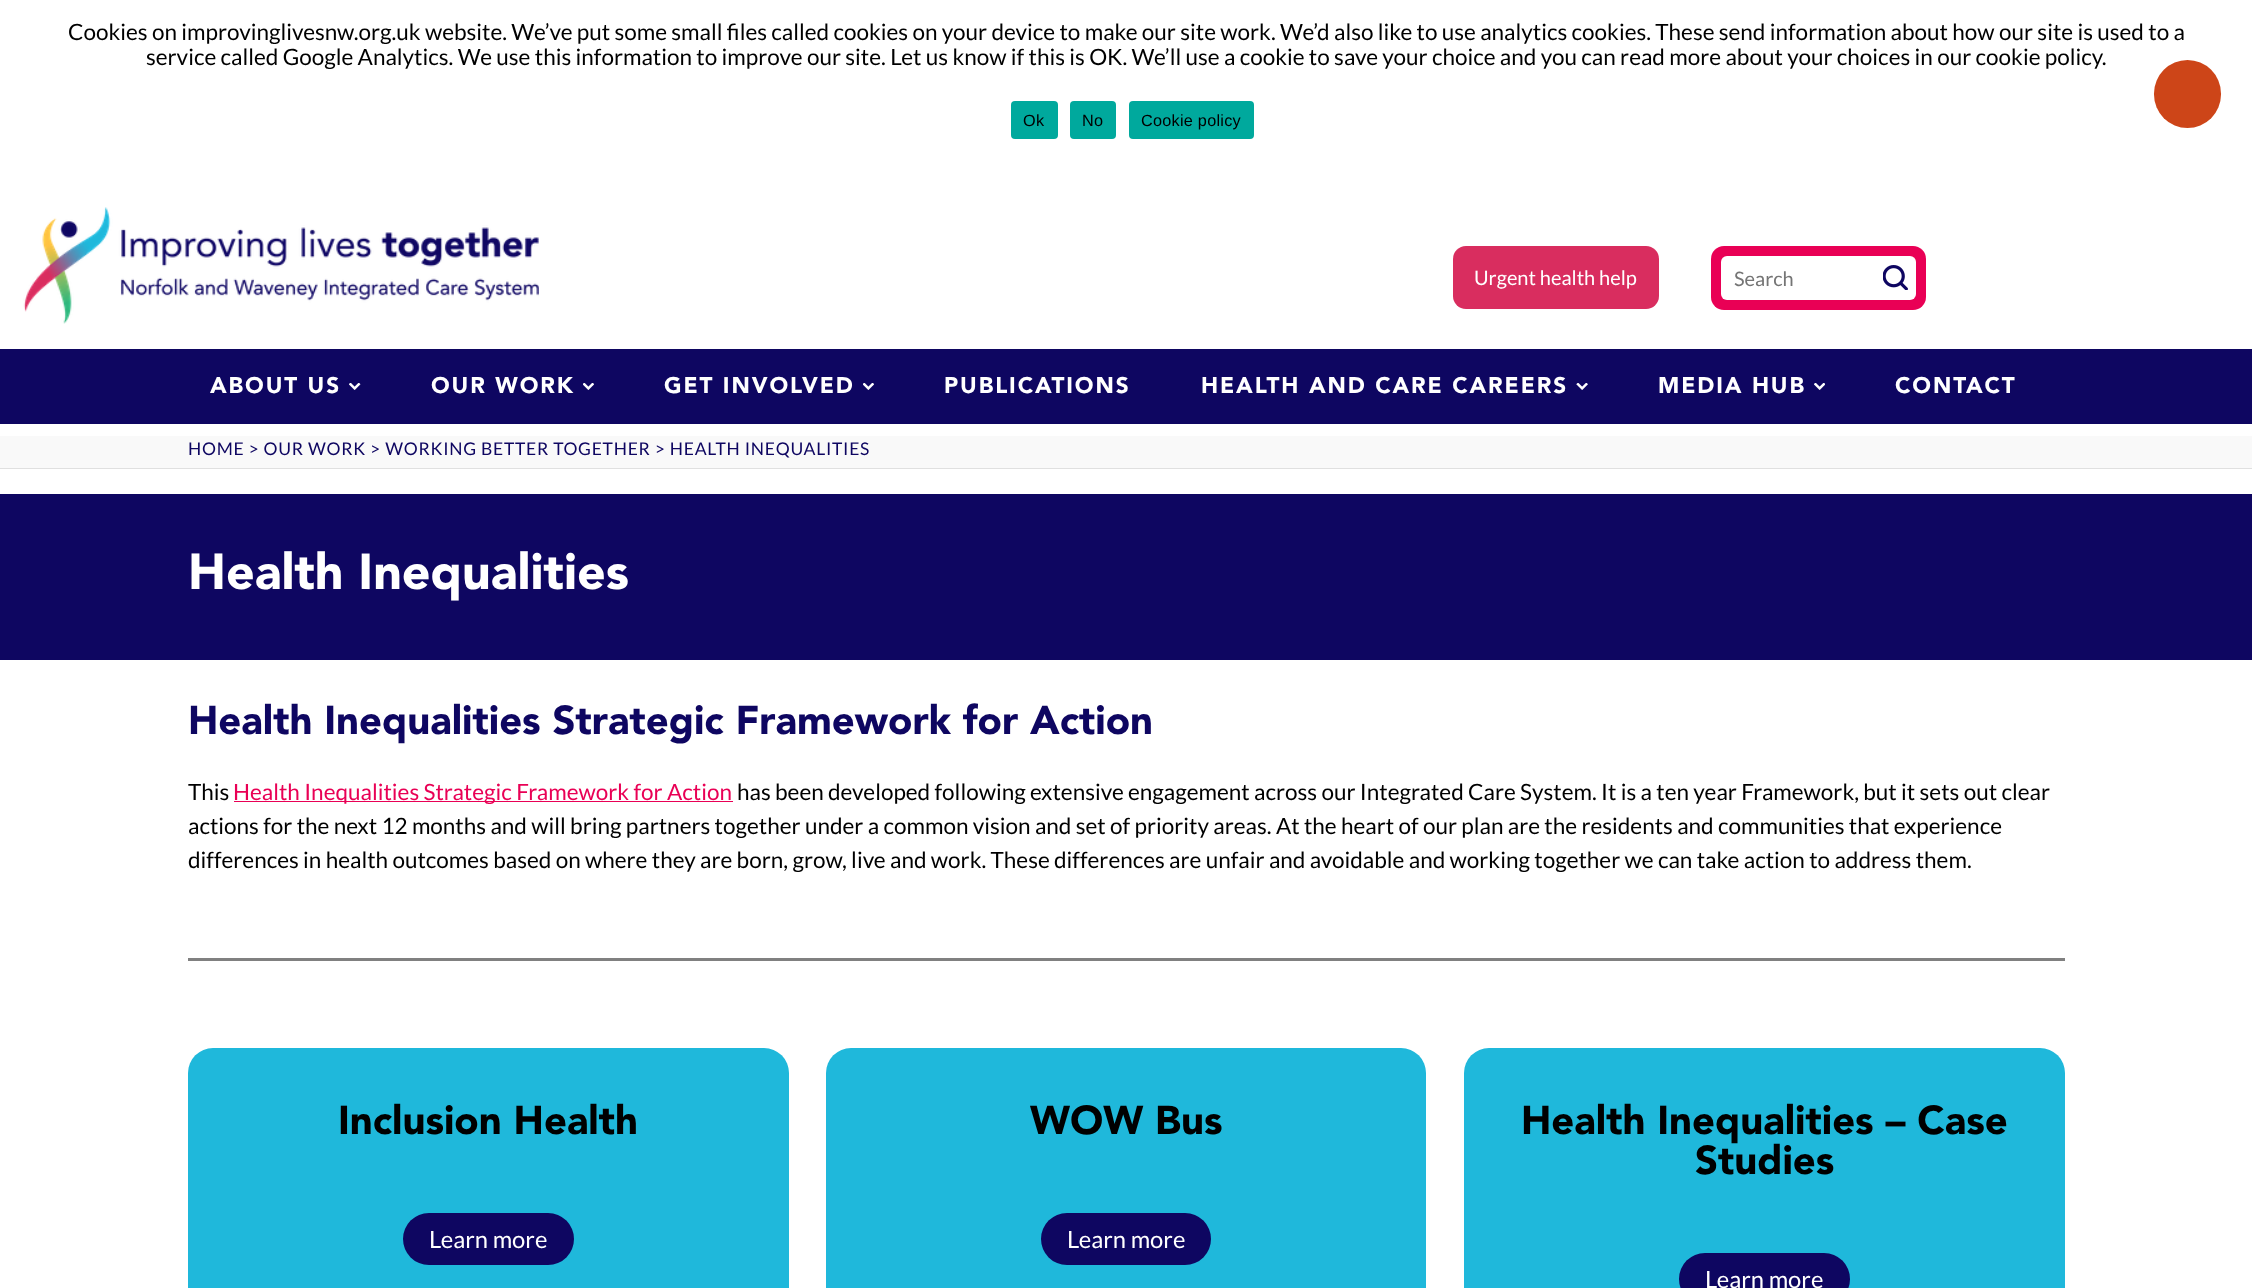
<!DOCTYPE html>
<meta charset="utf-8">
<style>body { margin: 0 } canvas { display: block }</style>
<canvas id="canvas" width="2252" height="1288"></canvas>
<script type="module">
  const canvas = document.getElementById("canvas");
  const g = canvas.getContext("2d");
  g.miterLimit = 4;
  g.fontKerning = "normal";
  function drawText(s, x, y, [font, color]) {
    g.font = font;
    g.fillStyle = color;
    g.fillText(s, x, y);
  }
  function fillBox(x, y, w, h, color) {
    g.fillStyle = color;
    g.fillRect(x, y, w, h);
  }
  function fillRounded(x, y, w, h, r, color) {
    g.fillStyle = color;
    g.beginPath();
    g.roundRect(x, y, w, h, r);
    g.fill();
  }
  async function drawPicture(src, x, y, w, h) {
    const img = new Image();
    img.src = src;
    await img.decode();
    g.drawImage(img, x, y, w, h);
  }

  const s1 = ["22.5px Lato", "#000000"];
  const s2 = ["16.25px Liberation Sans", "#000000"];
  const s3 = ["20px Lato", "#FFFFFF"];
  const s4 = ["20px Lato", "#757575"];
  const s5 = ["900 22.5px Avenir", "#FFFFFF"];
  const s6 = ["17.5px Lato", "#0E0661"];
  const s7 = ["900 50px Avenir", "#FFFFFF"];
  const s8 = ["900 40px Avenir", "#0E0661"];
  const s9 = ["22.5px Lato", "#E90055"];
  const s10 = ["900 40px Avenir", "#000000"];
  const s11 = ["23.75px Lato", "#FFFFFF"];

  fillBox(0, 0, 2252, 1288, "#FFFFFF");
  drawText("Cookies on improvinglivesnw.org.uk website. We’ve put some small files called cookies on your device to make our site work. We’d also like to use analytics cookies. These send information about how our site is used to a", 68, 40, s1);
  drawText("service called Google Analytics. We use this information to improve our site. Let us know if this is OK. We’ll use a cookie to save your choice and you can read more about your choices in our cookie policy.", 146, 65, s1);
  fillRounded(1011, 101, 47, 38, 4, "#00A99D");
  g.letterSpacing = "0.25px";
  drawText("Ok", 1023, 126, s2);
  fillRounded(1070, 101, 46, 38, 4, "#00A99D");
  drawText("No", 1082, 126, s2);
  fillRounded(1129, 101, 125, 38, 4, "#00A99D");
  drawText("Cookie policy", 1141, 126, s2);
  fillRounded(2154, 60, 67, 68, 33.5, "#CD4518");
  await drawPicture("pic1.png", 23, 207, 516, 117);
  fillRounded(1453, 246, 206, 63, 13, "#D92D5F");
  g.letterSpacing = "0px";
  drawText("Urgent health help", 1474, 285, s3);
  fillRounded(1711, 246, 215, 64, 13, "#E90055");
  fillRounded(1721, 256, 195, 44, 6, "#FFFFFF");
  drawText("Search", 1734, 286, s4);
  await drawPicture("pic2.png", 1883, 265, 25, 25);
  fillBox(0, 349, 2252, 75, "#0E0661");
  g.letterSpacing = "1.9px";
  drawText("ABOUT US", 210, 393, s5);
  await drawPicture("pic3.png", 349, 383, 12, 7);
  drawText("OUR WORK", 431, 393, s5);
  await drawPicture("pic4.png", 583, 383, 11, 7);
  drawText("GET INVOLVED", 664, 393, s5);
  await drawPicture("pic4.png", 863, 383, 11, 7);
  drawText("PUBLICATIONS", 944, 393, s5);
  drawText("HEALTH AND CARE CAREERS", 1201, 393, s5);
  await drawPicture("pic5.png", 1576, 383, 12, 7);
  drawText("MEDIA HUB", 1658, 393, s5);
  await drawPicture("pic6.png", 1814, 383, 11, 7);
  drawText("CONTACT", 1895, 393, s5);
  fillBox(0, 436, 2252, 32, "#F9F9F9");
  fillBox(0, 468, 2252, 1, "#E0E0E0");
  g.letterSpacing = "0.75px";
  drawText("HOME > OUR WORK > WORKING BETTER TOGETHER > HEALTH INEQUALITIES", 188, 455, s6);
  fillBox(0, 494, 2252, 166, "#0E0661");
  g.letterSpacing = "0px";
  drawText("Health Inequalities", 188, 589, s7);
  drawText("Health Inequalities Strategic Framework for Action", 188, 734, s8);
  drawText("This", 188, 800, s1);
  fillBox(234, 801, 499, 1, "#E90055");
  drawText("Health Inequalities Strategic Framework for Action", 233, 800, s9);
  drawText("has been developed following extensive engagement across our Integrated Care System. It is a ten year Framework, but it sets out clear", 737, 800, s1);
  drawText("actions for the next 12 months and will bring partners together under a common vision and set of priority areas. At the heart of our plan are the residents and communities that experience", 188, 834, s1);
  drawText("differences in health outcomes based on where they are born, grow, live and work. These differences are unfair and avoidable and working together we can take action to address them.", 188, 868, s1);
  fillBox(188, 958, 1877, 3, "#808080");
  fillRounded(188, 1048, 601, 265, 25, "#1FB8DB");
  drawText("Inclusion Health", 338, 1134, s10);
  fillRounded(403, 1213, 171, 52, 26, "#0E0661");
  drawText("Learn more", 429, 1248, s11);
  fillRounded(826, 1048, 600, 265, 25, "#1FB8DB");
  drawText("WOW Bus", 1030, 1134, s10);
  fillRounded(1041, 1213, 170, 52, 26, "#0E0661");
  drawText("Learn more", 1067, 1248, s11);
  fillRounded(1464, 1048, 601, 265, 25, "#1FB8DB");
  drawText("Health Inequalities – Case", 1521, 1134, s10);
  drawText("Studies", 1695, 1174, s10);
  fillRounded(1679, 1253, 171, 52, 26, "#0E0661");
  drawText("Learn more", 1705, 1288, s11);
</script>
